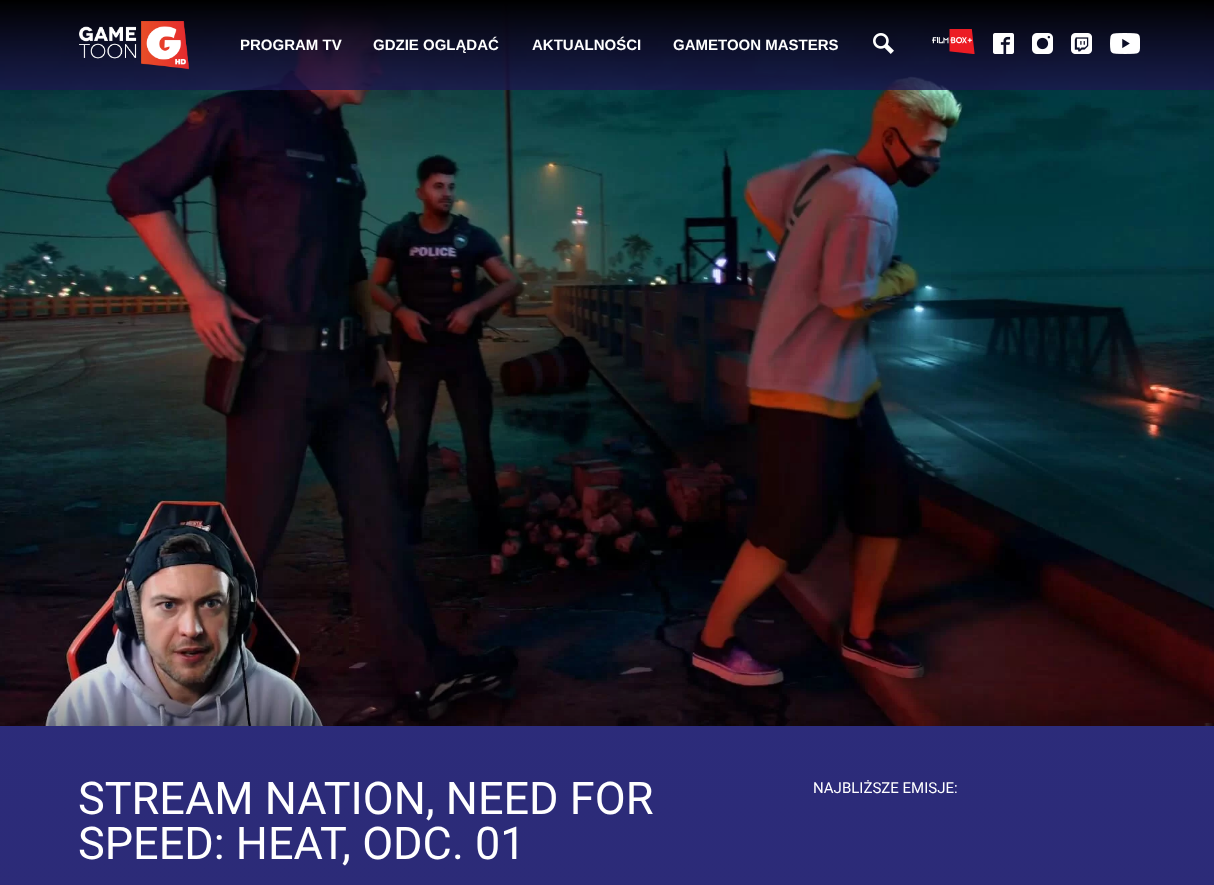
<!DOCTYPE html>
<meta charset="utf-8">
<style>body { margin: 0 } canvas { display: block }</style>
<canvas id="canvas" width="1214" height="885"></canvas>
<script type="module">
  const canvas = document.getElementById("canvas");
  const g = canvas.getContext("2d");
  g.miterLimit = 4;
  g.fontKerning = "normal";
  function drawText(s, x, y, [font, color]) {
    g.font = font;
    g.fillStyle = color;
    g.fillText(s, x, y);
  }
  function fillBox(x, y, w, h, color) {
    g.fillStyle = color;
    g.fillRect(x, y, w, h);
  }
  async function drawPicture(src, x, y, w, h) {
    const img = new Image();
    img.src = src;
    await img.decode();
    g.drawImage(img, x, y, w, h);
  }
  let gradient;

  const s1 = ["bold 15px Liberation Sans", "#FFFFFF"];
  const s2 = ["45px Roboto", "#FFFFFF"];
  const s3 = ["15px Roboto", "#FFFFFF"];

  fillBox(0, 0, 1214, 885, "#FFFFFF");
  gradient = g.createLinearGradient(607, 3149, 607, 0);
  gradient.addColorStop(0, "#29235C");
  gradient.addColorStop(1, "#2D2E83");
  g.fillStyle = gradient;
  g.fillRect(0, 726, 1214, 159);
  await drawPicture("pic8.png", 0, 0, 1214, 726);
  await drawPicture("pic1.png", 79, 21, 110, 49);
  drawText("PROGRAM TV", 240, 50, s1);
  drawText("GDZIE OGLĄDAĆ", 373, 50, s1);
  drawText("AKTUALNOŚCI", 532, 50, s1);
  drawText("GAMETOON MASTERS", 673, 50, s1);
  await drawPicture("pic2.png", 873, 33, 21, 21);
  await drawPicture("pic3.png", 932, 29, 43, 25);
  await drawPicture("pic4.png", 993, 33, 21, 21);
  await drawPicture("pic5.png", 1032, 33, 21, 21);
  await drawPicture("pic6.png", 1071, 33, 21, 21);
  await drawPicture("pic7.png", 1110, 33, 30, 21);
  drawText("STREAM NATION, NEED FOR", 78, 814, s2);
  drawText("SPEED: HEAT, ODC. 01", 78, 859, s2);
  drawText("NAJBLIŻSZE EMISJE:", 813, 793, s3);
</script>
